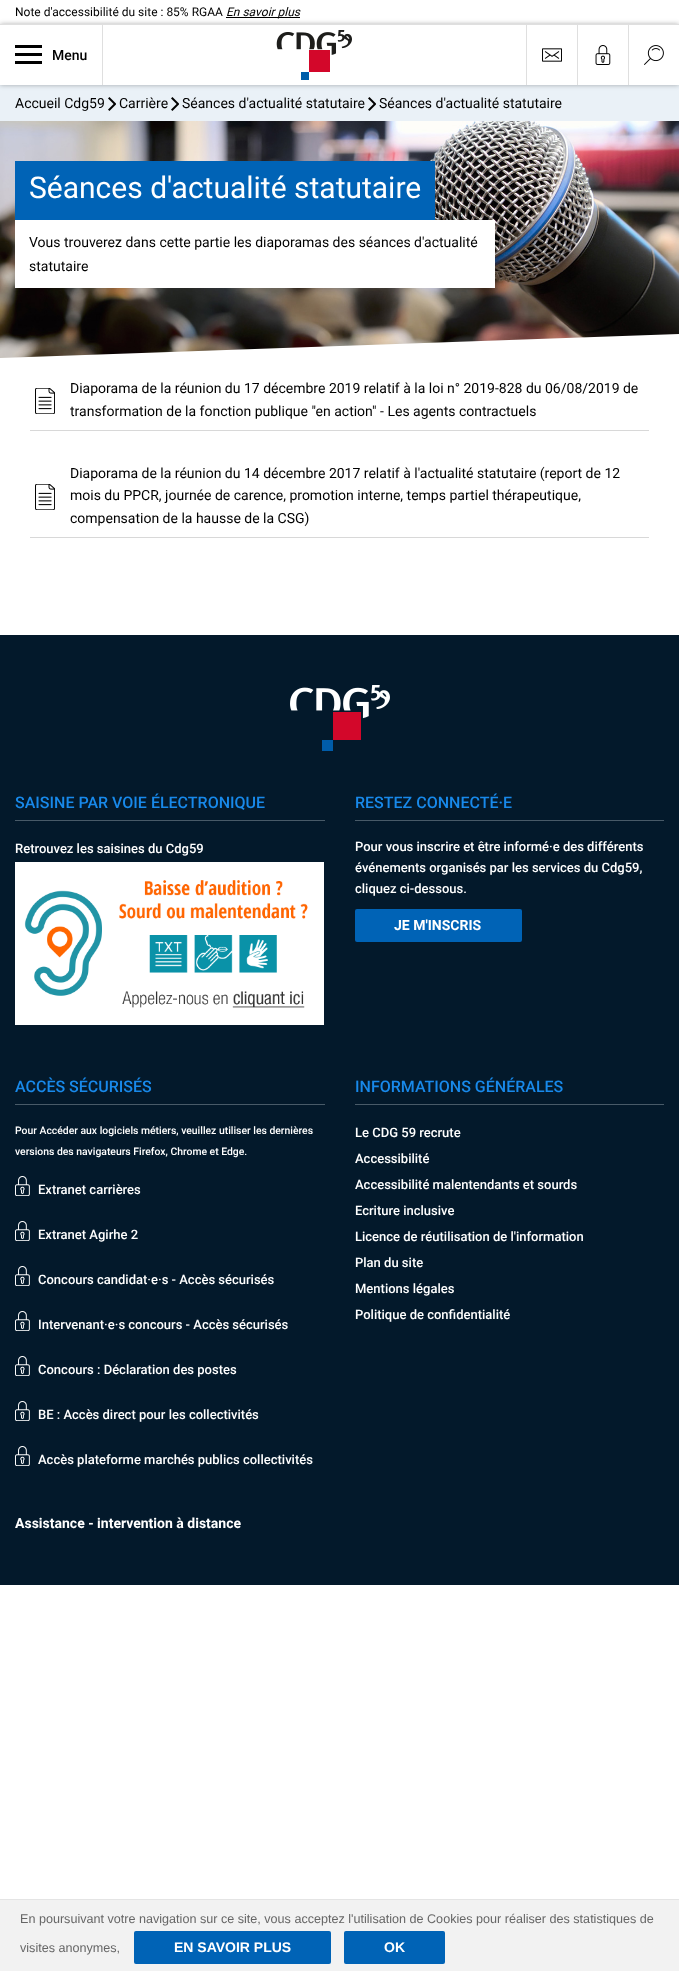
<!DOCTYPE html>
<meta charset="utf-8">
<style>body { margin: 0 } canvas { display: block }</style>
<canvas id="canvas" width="679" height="1971"></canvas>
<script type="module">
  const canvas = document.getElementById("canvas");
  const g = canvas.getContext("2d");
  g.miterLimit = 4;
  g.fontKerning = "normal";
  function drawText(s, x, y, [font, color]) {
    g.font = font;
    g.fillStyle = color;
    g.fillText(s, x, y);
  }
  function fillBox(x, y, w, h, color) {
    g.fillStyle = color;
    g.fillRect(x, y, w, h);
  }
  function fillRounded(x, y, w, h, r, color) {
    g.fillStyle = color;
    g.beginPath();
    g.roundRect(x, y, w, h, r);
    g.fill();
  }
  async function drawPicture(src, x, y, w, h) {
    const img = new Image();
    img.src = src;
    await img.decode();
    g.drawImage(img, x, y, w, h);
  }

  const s1 = ["12px Roboto", "#000000"];
  const s2 = ["italic 12px Roboto", "#000000"];
  const s3 = ["500 14px Roboto", "#000000"];
  const s4 = ["14px Roboto", "#000000"];
  const s5 = ["30px Roboto", "#FFFFFF"];
  const s6 = ["500 16px Roboto", "#1889EA"];
  const s7 = ["500 13px Roboto", "#FFFFFF"];
  const s8 = ["bold 14px Roboto", "#FFFFFF"];
  const s9 = ["500 10.4px Roboto", "#FFFFFF"];
  const s10 = ["12.6px Liberation Sans", "#666666"];
  const s11 = ["bold 14px Liberation Sans", "#FFFFFF"];

  fillBox(0, 0, 679, 1971, "#FFFFFF");
  drawText("Note d'accessibilité du site : 85% RGAA", 15, 16, s1);
  fillBox(226, 17, 74, 1, "#000000");
  drawText("En savoir plus", 226, 16, s2);
  fillBox(0, 85, 679, 36, "#EAF1F7");
  g.save();
  g.beginPath();
  g.moveTo(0, 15);
  g.lineTo(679, 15);
  g.lineTo(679, 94);
  g.lineTo(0, 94);
  g.closePath();
  g.moveTo(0, 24);
  g.lineTo(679, 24);
  g.lineTo(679, 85);
  g.lineTo(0, 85);
  g.closePath();
  g.clip("evenodd");
  g.fillStyle = "rgba(0, 0, 0, 0.3)";
  g.filter = "blur(2.5px)";
  g.beginPath();
  g.rect(0, 24, 679, 61);
  g.fill();
  g.filter = "none";
  g.restore();
  fillBox(0, 24, 679, 1, "#DFDFDF");
  fillBox(102, 25, 1, 60, "#DFDFDF");
  fillBox(15, 53, 27, 3, "#000000");
  fillBox(15, 45, 27, 3, "#000000");
  fillBox(15, 61, 27, 3, "#000000");
  drawText("Menu", 52, 60, s3);
  await drawPicture("pic1.png", 276, 30, 76, 50);
  fillBox(526, 25, 1, 60, "#DFDFDF");
  await drawPicture("pic2.png", 542, 48, 20, 14);
  fillBox(577, 25, 1, 60, "#DFDFDF");
  await drawPicture("pic3.png", 595, 45, 16, 20);
  fillBox(628, 25, 1, 60, "#DFDFDF");
  await drawPicture("pic4.png", 644, 45, 20, 20);
  drawText("Accueil Cdg59", 15, 108, s4);
  await drawPicture("pic5.png", 108, 97, 8, 14);
  drawText("Carrière", 119, 108, s4);
  await drawPicture("pic5.png", 171, 97, 8, 14);
  drawText("Séances d'actualité statutaire", 182, 108, s4);
  await drawPicture("pic5.png", 368, 97, 8, 14);
  drawText("Séances d'actualité statutaire", 379, 108, s4);
  await drawPicture("pic6.png", 0, 121, 679, 237);
  fillBox(15, 161, 420, 59, "#0063B6");
  drawText("Séances d'actualité statutaire", 29, 198, s5);
  fillBox(15, 220, 480, 68, "#FFFFFF");
  drawText("Vous trouverez dans cette partie les diaporamas des séances d'actualité", 29, 247, s4);
  drawText("statutaire", 29, 271, s4);
  g.fillStyle = "#FFFFFF";
  g.beginPath();
  g.moveTo(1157, 375);
  g.lineTo(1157, 317);
  g.lineTo(-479, 375);
  g.closePath();
  g.fill();
  fillBox(30, 430, 619, 1, "#D8D8D8");
  await drawPicture("pic7.png", 35, 388, 20, 26);
  drawText("Diaporama de la réunion du 17 décembre 2019 relatif à la loi n° 2019-828 du 06/08/2019 de", 70, 393, s4);
  drawText("transformation de la fonction publique \"en action\" - Les agents contractuels", 70, 416, s4);
  fillBox(30, 537, 619, 1, "#D8D8D8");
  drawText("Diaporama de la réunion du 14 décembre 2017 relatif à l'actualité statutaire (report de 12", 70, 478, s4);
  await drawPicture("pic7.png", 35, 484, 20, 26);
  drawText("mois du PPCR, journée de carence, promotion interne, temps partiel thérapeutique,", 70, 500, s4);
  drawText("compensation de la hausse de la CSG)", 70, 523, s4);
  fillBox(0, 635, 679, 950, "#03192B");
  await drawPicture("pic8.png", 290, 685, 100, 66);
  fillBox(15, 820, 310, 1, "#485A68");
  drawText("SAISINE PAR VOIE ÉLECTRONIQUE", 15, 808, s6);
  drawText("Retrouvez les saisines du Cdg59", 15, 853, s7);
  await drawPicture("pic9.png", 15, 862, 309, 163);
  fillBox(355, 820, 309, 1, "#485A68");
  drawText("RESTEZ CONNECTÉ·E", 355, 808, s6);
  drawText("Pour vous inscrire et être informé·e des différents", 355, 851, s7);
  drawText("événements organisés par les services du Cdg59,", 355, 872, s7);
  drawText("cliquez ci-dessous.", 355, 893, s7);
  fillRounded(355, 909, 167, 33, 2, "#0063B6");
  drawText("JE M'INSCRIS", 394, 930, s8);
  fillBox(15, 1104, 310, 1, "#485A68");
  drawText("ACCÈS SÉCURISÉS", 15, 1092, s6);
  drawText("Pour Accéder aux logiciels métiers, veuillez utiliser les dernières", 15, 1134, s9);
  drawText("versions des navigateurs Firefox, Chrome et Edge.", 15, 1155, s9);
  await drawPicture("pic10.png", 15, 1176, 15, 20);
  drawText("Extranet carrières", 38, 1194, s7);
  await drawPicture("pic10.png", 15, 1221, 15, 20);
  drawText("Extranet Agirhe 2", 38, 1239, s7);
  await drawPicture("pic10.png", 15, 1266, 15, 20);
  drawText("Concours candidat·e·s - Accès sécurisés", 38, 1284, s7);
  await drawPicture("pic10.png", 15, 1311, 15, 20);
  drawText("Intervenant·e·s concours - Accès sécurisés", 38, 1329, s7);
  await drawPicture("pic10.png", 15, 1356, 15, 20);
  drawText("Concours : Déclaration des postes", 38, 1374, s7);
  await drawPicture("pic10.png", 15, 1401, 15, 20);
  drawText("BE : Accès direct pour les collectivités", 38, 1419, s7);
  await drawPicture("pic10.png", 15, 1446, 15, 20);
  drawText("Accès plateforme marchés publics collectivités", 38, 1464, s7);
  drawText("Assistance - intervention à distance", 15, 1528, s8);
  fillBox(355, 1104, 309, 1, "#485A68");
  drawText("INFORMATIONS GÉNÉRALES", 355, 1092, s6);
  drawText("Le CDG 59 recrute", 355, 1137, s7);
  drawText("Accessibilité", 355, 1163, s7);
  drawText("Accessibilité malentendants et sourds", 355, 1189, s7);
  drawText("Ecriture inclusive", 355, 1215, s7);
  drawText("Licence de réutilisation de l'information", 355, 1241, s7);
  drawText("Plan du site", 355, 1267, s7);
  drawText("Mentions légales", 355, 1293, s7);
  drawText("Politique de confidentialité", 355, 1319, s7);
  fillBox(0, 1900, 679, 71, "#F2F2F2");
  fillBox(0, 1899, 679, 1, "#E4E4E4");
  drawText("En poursuivant votre navigation sur ce site, vous acceptez l'utilisation de Cookies pour réaliser des statistiques de", 20, 1923, s10);
  drawText("visites anonymes,", 20, 1952, s10);
  fillRounded(134, 1931, 197, 33, 2, "#0063B6");
  drawText("EN SAVOIR PLUS", 174, 1952, s11);
  fillRounded(344, 1931, 101, 33, 2, "#0063B6");
  drawText("OK", 384, 1952, s11);
</script>
